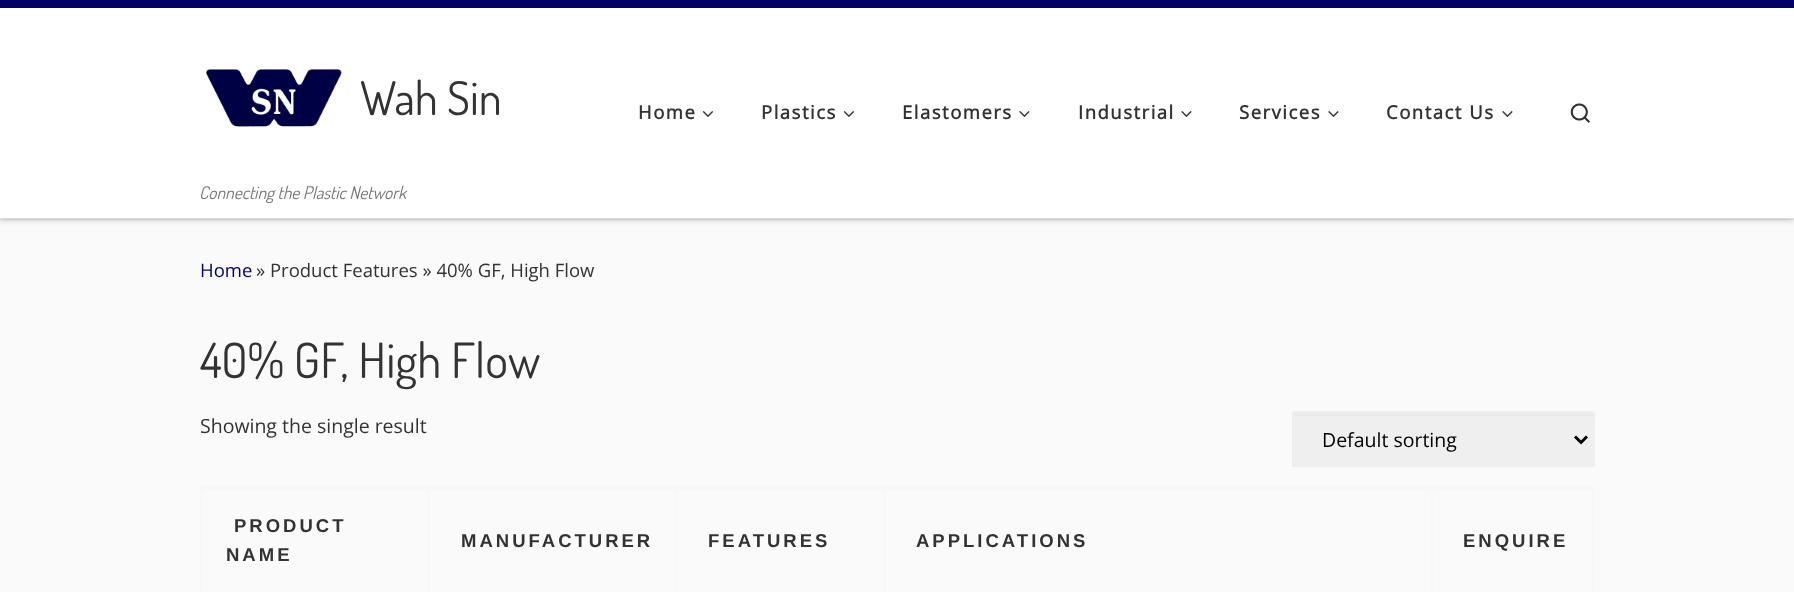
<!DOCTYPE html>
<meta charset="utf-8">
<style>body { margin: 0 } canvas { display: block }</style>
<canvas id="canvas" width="1794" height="592"></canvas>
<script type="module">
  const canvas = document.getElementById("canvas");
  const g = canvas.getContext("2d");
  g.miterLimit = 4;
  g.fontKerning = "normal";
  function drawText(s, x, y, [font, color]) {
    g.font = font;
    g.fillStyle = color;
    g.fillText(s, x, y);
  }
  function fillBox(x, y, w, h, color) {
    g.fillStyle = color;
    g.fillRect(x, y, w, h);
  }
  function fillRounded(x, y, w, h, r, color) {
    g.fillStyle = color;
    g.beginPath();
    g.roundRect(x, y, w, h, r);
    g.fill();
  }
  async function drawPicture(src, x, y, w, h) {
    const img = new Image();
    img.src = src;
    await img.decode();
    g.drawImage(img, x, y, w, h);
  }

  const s1 = ["46.5px Dosis", "#333333"];
  const s2 = ["italic 17.5px Dosis", "#777777"];
  const s3 = ["bold 18.5px Open Sans", "#333333"];
  const s4 = ["18.5px Open Sans", "#05006B"];
  const s5 = ["18.5px Open Sans", "#333333"];
  const s6 = ["48.5px Dosis", "#333333"];
  const s7 = ["19.5px Open Sans", "#333333"];
  const s8 = ["19.5px Open Sans", "#000000"];
  const s9 = ["bold 18.5px Liberation Sans", "#333333"];

  fillBox(0, 0, 1794, 592, "#FAFAFA");
  g.fillStyle = "rgba(102, 102, 102, 0.08)";
  g.filter = "blur(1.5px)";
  g.beginPath();
  g.rect(0, 3, 1794, 219);
  g.fill();
  g.filter = "none";
  fillBox(0, 0, 1794, 8, "#05006B");
  fillBox(0, 219, 1794, 1, "rgba(49, 49, 49, 0.09)");
  fillBox(0, 218, 1794, 1, "#EFEFEF");
  g.fillStyle = "rgba(0, 0, 0, 0.2)";
  g.filter = "blur(4px)";
  g.beginPath();
  g.rect(0, 8, 1794, 210);
  g.fill();
  g.filter = "none";
  fillBox(0, 8, 1794, 210, "#FFFFFF");
  await drawPicture("pic1.png", 206, 69, 136, 58);
  drawText("Wah Sin", 360, 115, s1);
  drawText("Connecting the Plastic Network", 199, 199, s2);
  g.letterSpacing = "1.5px";
  drawText("Home", 638, 119, s3);
  await drawPicture("pic2.png", 702, 111, 11, 6);
  drawText("Plastics", 761, 119, s3);
  await drawPicture("pic2.png", 843, 111, 11, 6);
  drawText("Elastomers", 902, 119, s3);
  await drawPicture("pic3.png", 1019, 111, 11, 6);
  drawText("Industrial", 1078, 119, s3);
  await drawPicture("pic3.png", 1181, 111, 11, 6);
  drawText("Services", 1239, 119, s3);
  await drawPicture("pic3.png", 1328, 111, 11, 6);
  drawText("Contact Us", 1386, 119, s3);
  await drawPicture("pic3.png", 1502, 111, 11, 6);
  await drawPicture("pic4.png", 1570, 103, 20, 20);
  g.letterSpacing = "0px";
  drawText("Home", 200, 277, s4);
  drawText("» Product Features » 40% GF, High Flow", 256, 277, s5);
  drawText("40% GF, High Flow", 200, 378, s6);
  drawText("Showing the single result", 200, 433, s7);
  fillRounded(1292, 411, 303, 56, 3, "#EFEFEF");
  g.fillStyle = "#E9E9E9";
  g.beginPath();
  g.moveTo(1294, 416);
  g.lineTo(1592, 416);
  g.lineTo(1593, 417);
  g.lineTo(1593, 414);
  g.bezierCurveTo(1593, 414, 1592, 413, 1592, 413);
  g.lineTo(1294, 413);
  g.bezierCurveTo(1294, 413, 1293, 414, 1293, 414);
  g.lineTo(1293, 417);
  g.closePath();
  g.fill();
  g.beginPath();
  g.roundRect(1293, 412, 301, 54, 2);
  g.strokeStyle = "#ECEEEF";
  g.lineWidth = 2;
  g.stroke();
  g.beginPath();
  g.moveTo(1575, 436.5);
  g.lineTo(1581, 442.5);
  g.lineTo(1587, 436.5);
  g.strokeStyle = "#000000";
  g.lineWidth = 3;
  g.stroke();
  drawText("Default sorting", 1322, 447, s8);
  fillBox(1431, 489, 164, 1, "#F7F8F9");
  fillBox(1431, 488, 2, 104, "#F7F8F9");
  fillBox(884, 489, 549, 1, "#F7F8F9");
  fillBox(884, 488, 2, 104, "#F7F8F9");
  fillBox(675, 489, 210, 1, "#F7F8F9");
  fillBox(675, 488, 2, 104, "#F7F8F9");
  fillBox(428, 489, 249, 1, "#F7F8F9");
  fillBox(428, 488, 2, 104, "#F7F8F9");
  fillBox(200, 486, 1395, 3, "#F7F8F9");
  fillBox(1592, 486, 3, 106, "#F7F8F9");
  fillBox(201, 489, 228, 1, "#F7F8F9");
  fillBox(200, 486, 3, 106, "#F7F8F9");
  g.letterSpacing = "3px";
  drawText("PRODUCT", 234, 532, s9);
  drawText("NAME", 226, 561, s9);
  drawText("MANUFACTURER", 461, 547, s9);
  drawText("FEATURES", 708, 547, s9);
  drawText("APPLICATIONS", 916, 547, s9);
  drawText("ENQUIRE", 1463, 547, s9);
</script>
